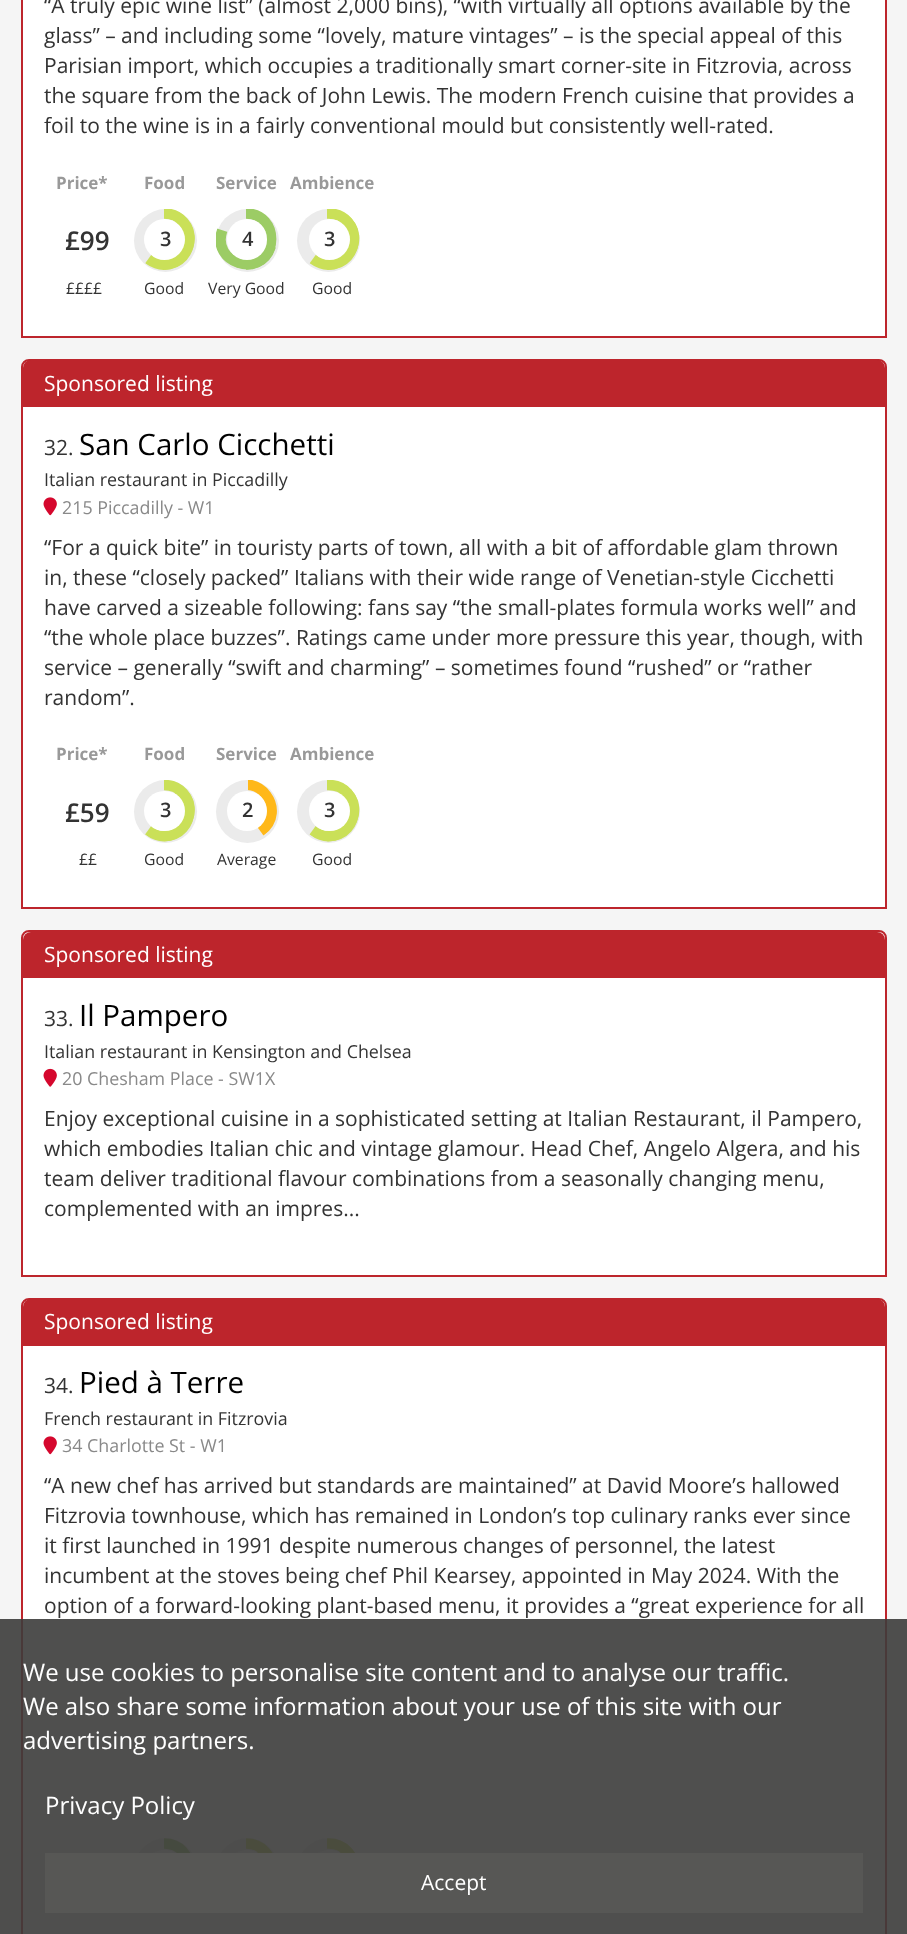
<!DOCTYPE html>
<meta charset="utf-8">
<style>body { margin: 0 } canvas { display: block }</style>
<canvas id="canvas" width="907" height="1934"></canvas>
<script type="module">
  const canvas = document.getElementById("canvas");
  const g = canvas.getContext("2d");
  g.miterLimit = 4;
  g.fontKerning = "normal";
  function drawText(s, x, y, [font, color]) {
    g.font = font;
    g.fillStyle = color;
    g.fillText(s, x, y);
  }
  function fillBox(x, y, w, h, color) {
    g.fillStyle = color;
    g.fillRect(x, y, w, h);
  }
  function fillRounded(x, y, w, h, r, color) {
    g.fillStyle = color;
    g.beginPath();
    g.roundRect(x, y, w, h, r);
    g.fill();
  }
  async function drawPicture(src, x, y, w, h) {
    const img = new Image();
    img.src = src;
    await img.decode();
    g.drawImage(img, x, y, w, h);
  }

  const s1 = ["21px Open Sans", "#333333"];
  const s2 = ["bold 17px Open Sans", "#999999"];
  const s3 = ["600 26px Open Sans", "#333333"];
  const s4 = ["15.75px Open Sans", "#333333"];
  const s5 = ["600 20px Open Sans", "#333333"];
  const s6 = ["21px Open Sans", "#FFFFFF"];
  const s7 = ["29.5px Open Sans", "#000000"];
  const s8 = ["17.85px Open Sans", "#333333"];
  const s9 = ["17.85px Open Sans", "#898989"];
  const s10 = ["24px Open Sans", "#FFFFFF"];

  fillBox(0, 0, 907, 1934, "#F5F5F5");
  g.fillStyle = "#FFFFFF";
  g.beginPath();
  g.rect(22, -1, 864, 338);
  g.fill();
  g.strokeStyle = "#BD252C";
  g.lineWidth = 2;
  g.stroke();
  drawText("“A truly epic wine list” (almost 2,000 bins), “with virtually all options available by the", 44, 13, s1);
  drawText("glass” – and including some “lovely, mature vintages” – is the special appeal of this", 44, 43, s1);
  drawText("Parisian import, which occupies a traditionally smart corner-site in Fitzrovia, across", 44, 73, s1);
  drawText("the square from the back of John Lewis. The modern French cuisine that provides a", 44, 103, s1);
  drawText("foil to the wine is in a fairly conventional mould but consistently well-rated.", 44, 133, s1);
  drawText("Price*", 56, 189, s2);
  drawText("£99", 65, 250, s3);
  drawText("££££", 66, 294, s4);
  drawText("Food", 144, 189, s2);
  g.fillStyle = "#EBEBEB";
  g.beginPath();
  g.arc(165.5, 240.5, 31.5, 0, Math.PI * 2);
  g.fill();
  g.save();
  g.beginPath();
  g.moveTo(170.5, 282);
  g.lineTo(145, 263.5);
  g.lineTo(182, 212.5);
  g.lineTo(207.5, 231);
  g.closePath();
  g.clip();
  g.beginPath();
  g.moveTo(149, 259.5);
  g.bezierCurveTo(122, 240, 152, 199, 179, 218.5);
  g.bezierCurveTo(206, 238, 176, 279, 149, 259.5);
  g.closePath();
  g.strokeStyle = "#CAE058";
  g.lineWidth = 10.5;
  g.stroke();
  g.restore();
  g.save();
  g.beginPath();
  g.rect(164, 209, 31, 61);
  g.clip();
  g.beginPath();
  g.moveTo(164, 264.5);
  g.bezierCurveTo(130.5, 264.5, 130.5, 213.5, 164, 213.5);
  g.bezierCurveTo(197.5, 213.5, 197.5, 264.5, 164, 264.5);
  g.closePath();
  g.strokeStyle = "#CAE058";
  g.lineWidth = 10.5;
  g.stroke();
  g.restore();
  g.fillStyle = "#FFFFFF";
  g.beginPath();
  g.arc(164.5, 239.5, 20.5, 0, Math.PI * 2);
  g.fill();
  drawText("3", 160, 246, s5);
  drawText("Good", 144, 294, s4);
  drawText("Service", 216, 189, s2);
  g.fillStyle = "#EBEBEB";
  g.beginPath();
  g.arc(247.5, 240.5, 31.5, 0, Math.PI * 2);
  g.fill();
  g.save();
  g.beginPath();
  g.rect(216, 209, 63, 63);
  g.clip();
  g.beginPath();
  g.moveTo(207.5, 258.5);
  g.lineTo(217, 228.5);
  g.lineTo(277, 248);
  g.lineTo(267.5, 278);
  g.closePath();
  g.clip();
  g.beginPath();
  g.moveTo(222, 231);
  g.bezierCurveTo(232.5, 199.5, 280.5, 215, 270.5, 247);
  g.bezierCurveTo(260, 278.5, 211.5, 263, 222, 231);
  g.closePath();
  g.strokeStyle = "#9CCC65";
  g.lineWidth = 10.5;
  g.stroke();
  g.restore();
  g.save();
  g.beginPath();
  g.rect(246, 209, 32, 61);
  g.clip();
  g.beginPath();
  g.moveTo(246, 264.5);
  g.bezierCurveTo(212.5, 264.5, 212.5, 213.5, 246, 213.5);
  g.bezierCurveTo(279.5, 213.5, 279.5, 264.5, 246, 264.5);
  g.closePath();
  g.strokeStyle = "#9CCC65";
  g.lineWidth = 10.5;
  g.stroke();
  g.restore();
  fillRounded(227, 219, 40, 41, 20, "#FFFFFF");
  drawText("4", 242, 246, s5);
  drawText("Very Good", 208, 294, s4);
  drawText("Ambience", 290, 189, s2);
  g.fillStyle = "#EBEBEB";
  g.beginPath();
  g.arc(328.5, 240.5, 31.5, 0, Math.PI * 2);
  g.fill();
  g.save();
  g.beginPath();
  g.moveTo(335, 282);
  g.lineTo(309.5, 263.5);
  g.lineTo(346.5, 212.5);
  g.lineTo(372, 231);
  g.closePath();
  g.clip();
  g.beginPath();
  g.moveTo(313.5, 259.5);
  g.bezierCurveTo(286.5, 240, 316.5, 199, 343.5, 218.5);
  g.bezierCurveTo(370.5, 238, 340.5, 279, 313.5, 259.5);
  g.closePath();
  g.strokeStyle = "#CAE058";
  g.lineWidth = 10.5;
  g.stroke();
  g.restore();
  g.save();
  g.beginPath();
  g.rect(327, 209, 32, 61);
  g.clip();
  g.beginPath();
  g.moveTo(328.5, 264.5);
  g.bezierCurveTo(295, 264.5, 295, 213.5, 328.5, 213.5);
  g.bezierCurveTo(362, 213.5, 362, 264.5, 328.5, 264.5);
  g.closePath();
  g.strokeStyle = "#CAE058";
  g.lineWidth = 10.5;
  g.stroke();
  g.restore();
  g.fillStyle = "#FFFFFF";
  g.beginPath();
  g.arc(329.5, 239.5, 20.5, 0, Math.PI * 2);
  g.fill();
  drawText("3", 324, 246, s5);
  drawText("Good", 312, 294, s4);
  g.fillStyle = "#FFFFFF";
  g.beginPath();
  g.roundRect(22, 360, 864, 548, [7, 7, 0, 0]);
  g.fill();
  g.stroke();
  g.fillStyle = "#BD252C";
  g.beginPath();
  g.roundRect(23, 360, 862, 47, [8, 8, 0, 0]);
  g.fill();
  drawText("Sponsored listing", 44, 391, s6);
  drawText("32.", 44, 455, s1);
  drawText("San Carlo Cicchetti", 79, 455, s7);
  drawText("Italian restaurant in Piccadilly", 44, 486, s8);
  await drawPicture("pic1.png", 43, 497, 14, 19);
  drawText("215 Piccadilly - W1", 62, 514, s9);
  drawText("“For a quick bite” in touristy parts of town, all with a bit of affordable glam thrown", 44, 555, s1);
  drawText("in, these “closely packed” Italians with their wide range of Venetian-style Cicchetti", 44, 585, s1);
  drawText("have carved a sizeable following: fans say “the small-plates formula works well” and", 44, 615, s1);
  drawText("“the whole place buzzes”. Ratings came under more pressure this year, though, with", 44, 645, s1);
  drawText("service – generally “swift and charming” – sometimes found “rushed” or “rather", 44, 675, s1);
  drawText("random”.", 44, 705, s1);
  drawText("Price*", 56, 760, s2);
  drawText("£59", 65, 822, s3);
  drawText("££", 79, 865, s4);
  drawText("Food", 144, 760, s2);
  g.fillStyle = "#EBEBEB";
  g.beginPath();
  g.arc(165.5, 811.5, 31.5, 0, Math.PI * 2);
  g.fill();
  g.save();
  g.beginPath();
  g.moveTo(170.5, 853);
  g.lineTo(145, 834.5);
  g.lineTo(182, 783.5);
  g.lineTo(207.5, 802);
  g.closePath();
  g.clip();
  g.beginPath();
  g.moveTo(149, 831);
  g.bezierCurveTo(122, 811, 152, 770, 179, 790);
  g.bezierCurveTo(206, 809.5, 176, 850.5, 149, 831);
  g.closePath();
  g.strokeStyle = "#CAE058";
  g.lineWidth = 10.5;
  g.stroke();
  g.restore();
  g.save();
  g.beginPath();
  g.rect(164, 780, 31, 62);
  g.clip();
  g.beginPath();
  g.moveTo(164, 836);
  g.bezierCurveTo(130.5, 836, 130.5, 785, 164, 785);
  g.bezierCurveTo(197.5, 785, 197.5, 836, 164, 836);
  g.closePath();
  g.strokeStyle = "#CAE058";
  g.lineWidth = 10.5;
  g.stroke();
  g.restore();
  fillRounded(144, 791, 41, 40, 20, "#FFFFFF");
  drawText("3", 160, 817, s5);
  drawText("Good", 144, 865, s4);
  drawText("Service", 216, 760, s2);
  g.fillStyle = "#EBEBEB";
  g.beginPath();
  g.arc(247.5, 811.5, 31.5, 0, Math.PI * 2);
  g.fill();
  g.save();
  g.beginPath();
  g.rect(248, 780, 31, 63);
  g.clip();
  g.beginPath();
  g.moveTo(289, 817);
  g.lineTo(263.5, 835.5);
  g.lineTo(226.5, 784.5);
  g.lineTo(252, 766);
  g.closePath();
  g.clip();
  g.beginPath();
  g.moveTo(261, 831);
  g.bezierCurveTo(234, 850.5, 204, 809.5, 231, 790);
  g.bezierCurveTo(258.5, 770, 288, 811, 261, 831);
  g.closePath();
  g.strokeStyle = "#FFB819";
  g.lineWidth = 10.5;
  g.stroke();
  g.restore();
  g.fillStyle = "#FFFFFF";
  g.beginPath();
  g.arc(247, 811, 20, 0, Math.PI * 2);
  g.fill();
  drawText("2", 242, 817, s5);
  drawText("Average", 217, 865, s4);
  drawText("Ambience", 290, 760, s2);
  g.fillStyle = "#EBEBEB";
  g.beginPath();
  g.arc(328.5, 811.5, 31.5, 0, Math.PI * 2);
  g.fill();
  g.save();
  g.beginPath();
  g.moveTo(335, 853);
  g.lineTo(309.5, 834.5);
  g.lineTo(346.5, 783.5);
  g.lineTo(372, 802);
  g.closePath();
  g.clip();
  g.beginPath();
  g.moveTo(313.5, 831);
  g.bezierCurveTo(286.5, 811, 316.5, 770, 343.5, 790);
  g.bezierCurveTo(370.5, 809.5, 340.5, 850.5, 313.5, 831);
  g.closePath();
  g.strokeStyle = "#CAE058";
  g.lineWidth = 10.5;
  g.stroke();
  g.restore();
  g.save();
  g.beginPath();
  g.rect(327, 780, 32, 62);
  g.clip();
  g.beginPath();
  g.moveTo(328.5, 836);
  g.bezierCurveTo(295, 836, 295, 785, 328.5, 785);
  g.bezierCurveTo(362, 785, 362, 836, 328.5, 836);
  g.closePath();
  g.strokeStyle = "#CAE058";
  g.lineWidth = 10.5;
  g.stroke();
  g.restore();
  fillRounded(309, 791, 41, 40, 20, "#FFFFFF");
  drawText("3", 324, 817, s5);
  drawText("Good", 312, 865, s4);
  g.fillStyle = "#FFFFFF";
  g.beginPath();
  g.roundRect(22, 931, 864, 345, [7, 7, 0, 0]);
  g.fill();
  g.stroke();
  g.fillStyle = "#BD252C";
  g.beginPath();
  g.roundRect(23, 932, 862, 46, [8, 8, 0, 0]);
  g.fill();
  drawText("Sponsored listing", 44, 962, s6);
  drawText("33.", 44, 1026, s1);
  drawText("Il Pampero", 79, 1026, s7);
  drawText("Italian restaurant in Kensington and Chelsea", 44, 1058, s8);
  await drawPicture("pic2.png", 43, 1068, 14, 19);
  drawText("20 Chesham Place - SW1X", 62, 1085, s9);
  drawText("Enjoy exceptional cuisine in a sophisticated setting at Italian Restaurant, il Pampero,", 44, 1126, s1);
  drawText("which embodies Italian chic and vintage glamour. Head Chef, Angelo Algera, and his", 44, 1156, s1);
  drawText("team deliver traditional flavour combinations from a seasonally changing menu,", 44, 1186, s1);
  drawText("complemented with an impres...", 44, 1216, s1);
  g.fillStyle = "#FFFFFF";
  g.beginPath();
  g.moveTo(29, 1299);
  g.lineTo(879, 1299);
  g.bezierCurveTo(883, 1299, 886, 1302, 886, 1306);
  g.lineTo(886, 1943);
  g.lineTo(22, 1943);
  g.lineTo(22, 1306);
  g.bezierCurveTo(22, 1302, 25, 1299, 29, 1299);
  g.closePath();
  g.fill();
  g.stroke();
  g.fillStyle = "#BD252C";
  g.beginPath();
  g.roundRect(23, 1299, 862, 47, [8, 8, 0, 0]);
  g.fill();
  drawText("Sponsored listing", 44, 1329, s6);
  drawText("34.", 44, 1393, s1);
  drawText("Pied à Terre", 79, 1393, s7);
  drawText("French restaurant in Fitzrovia", 44, 1425, s8);
  await drawPicture("pic1.png", 43, 1436, 14, 19);
  drawText("34 Charlotte St - W1", 62, 1452, s9);
  drawText("“A new chef has arrived but standards are maintained” at David Moore’s hallowed", 44, 1493, s1);
  drawText("Fitzrovia townhouse, which has remained in London’s top culinary ranks ever since", 44, 1523, s1);
  drawText("it first launched in 1991 despite numerous changes of personnel, the latest", 44, 1553, s1);
  drawText("incumbent at the stoves being chef Phil Kearsey, appointed in May 2024. With the", 44, 1583, s1);
  drawText("option of a forward-looking plant-based menu, it provides a “great experience for all", 44, 1613, s1);
  g.fillStyle = "#EBEBEB";
  g.beginPath();
  g.arc(165.5, 1869.5, 31.5, 0, Math.PI * 2);
  g.fill();
  g.save();
  g.beginPath();
  g.rect(164, 1838, 31, 61);
  g.clip();
  g.beginPath();
  g.moveTo(164, 1894);
  g.bezierCurveTo(130.5, 1894, 130.5, 1843.5, 164, 1843.5);
  g.bezierCurveTo(197.5, 1843.5, 197.5, 1894, 164, 1894);
  g.closePath();
  g.strokeStyle = "#9CCC65";
  g.lineWidth = 10.5;
  g.stroke();
  g.restore();
  fillRounded(144, 1850, 41, 40, 20, "#FFFFFF");
  g.fillStyle = "#EBEBEB";
  g.beginPath();
  g.arc(247.5, 1869.5, 31.5, 0, Math.PI * 2);
  g.fill();
  g.save();
  g.beginPath();
  g.moveTo(253, 1911.5);
  g.lineTo(227.5, 1893);
  g.lineTo(264.5, 1842);
  g.lineTo(290, 1860.5);
  g.closePath();
  g.clip();
  g.beginPath();
  g.moveTo(231, 1889.5);
  g.bezierCurveTo(204, 1869.5, 234, 1828.5, 261, 1848.5);
  g.bezierCurveTo(288, 1868, 258.5, 1909, 231, 1889.5);
  g.closePath();
  g.strokeStyle = "#CAE058";
  g.lineWidth = 10.5;
  g.stroke();
  g.restore();
  g.save();
  g.beginPath();
  g.rect(246, 1838, 32, 61);
  g.clip();
  g.beginPath();
  g.moveTo(246, 1894);
  g.bezierCurveTo(212.5, 1894, 212.5, 1843.5, 246, 1843.5);
  g.bezierCurveTo(279.5, 1843.5, 279.5, 1894, 246, 1894);
  g.closePath();
  g.strokeStyle = "#CAE058";
  g.lineWidth = 10.5;
  g.stroke();
  g.restore();
  g.fillStyle = "#FFFFFF";
  g.beginPath();
  g.arc(247, 1870, 20, 0, Math.PI * 2);
  g.fill();
  g.fillStyle = "#EBEBEB";
  g.beginPath();
  g.arc(328.5, 1869.5, 31.5, 0, Math.PI * 2);
  g.fill();
  g.save();
  g.beginPath();
  g.moveTo(335, 1911.5);
  g.lineTo(309.5, 1893);
  g.lineTo(346.5, 1842);
  g.lineTo(372, 1860.5);
  g.closePath();
  g.clip();
  g.beginPath();
  g.moveTo(313.5, 1889.5);
  g.bezierCurveTo(286.5, 1869.5, 316.5, 1828.5, 343.5, 1848.5);
  g.bezierCurveTo(370.5, 1868, 340.5, 1909, 313.5, 1889.5);
  g.closePath();
  g.strokeStyle = "#CAE058";
  g.lineWidth = 10.5;
  g.stroke();
  g.restore();
  g.save();
  g.beginPath();
  g.rect(327, 1838, 32, 61);
  g.clip();
  g.beginPath();
  g.moveTo(328.5, 1894);
  g.bezierCurveTo(295, 1894, 295, 1843.5, 328.5, 1843.5);
  g.bezierCurveTo(362, 1843.5, 362, 1894, 328.5, 1894);
  g.closePath();
  g.strokeStyle = "#CAE058";
  g.lineWidth = 10.5;
  g.stroke();
  g.restore();
  fillRounded(309, 1850, 41, 40, 20, "#FFFFFF");
  fillBox(0, 1619, 907, 315, "rgba(60, 60, 59, 0.9)");
  drawText("We use cookies to personalise site content and to analyse our traffic.", 23, 1681, s10);
  drawText("We also share some information about your use of this site with our", 23, 1715, s10);
  drawText("advertising partners.", 23, 1749, s10);
  drawText("Privacy Policy", 45, 1814, s10);
  fillBox(45, 1853, 818, 60, "#575755");
  drawText("Accept", 421, 1890, s6);
</script>
